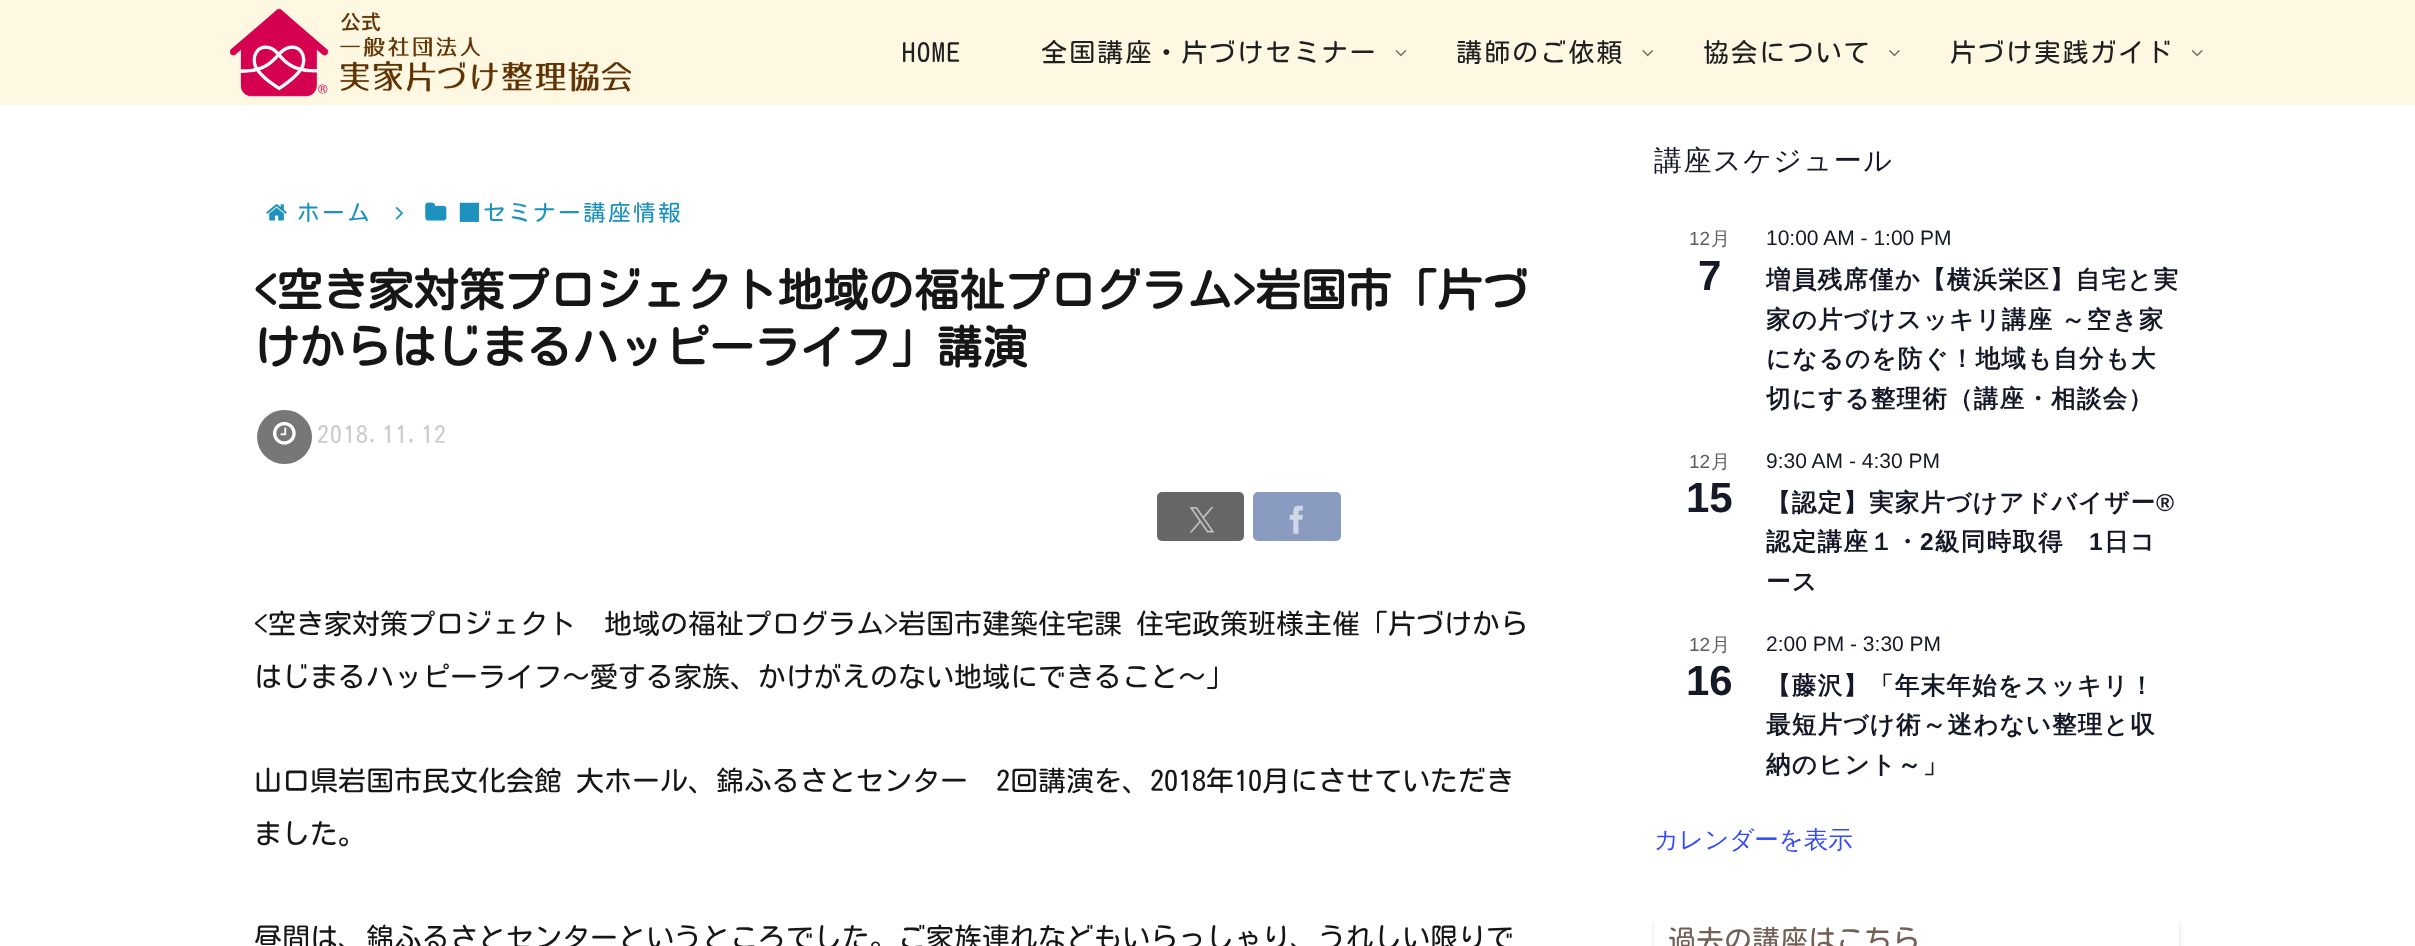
<!DOCTYPE html>
<meta charset="utf-8">
<style>body { margin: 0 } canvas { display: block }</style>
<canvas id="canvas" width="2415" height="946"></canvas>
<script type="module">
  const canvas = document.getElementById("canvas");
  const g = canvas.getContext("2d");
  g.miterLimit = 4;
  g.fontKerning = "normal";
  function drawText(s, x, y, [font, color]) {
    g.font = font;
    g.fillStyle = color;
    g.fillText(s, x, y);
  }
  function fillBox(x, y, w, h, color) {
    g.fillStyle = color;
    g.fillRect(x, y, w, h);
  }
  function fillRounded(x, y, w, h, r, color) {
    g.fillStyle = color;
    g.beginPath();
    g.roundRect(x, y, w, h, r);
    g.fill();
  }
  async function drawPicture(src, x, y, w, h) {
    const img = new Image();
    img.src = src;
    await img.decode();
    g.drawImage(img, x, y, w, h);
  }

  const s1 = ["26.25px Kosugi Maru", "#202020"];
  const s2 = ["22.75px Kosugi Maru", "#1E92BF"];
  const s3 = ["bold 45.5px Kosugi Maru", "#161616"];
  const s4 = ["23.5px Kosugi Maru", "#CCCCCC"];
  const s5 = ["28px Kosugi Maru", "#161616"];
  const s6 = ["500 28px WenQuanYi Zen Hei", "#141827"];
  const s7 = ["19px Liberation Sans", "#5D5D5D"];
  const s8 = ["500 19px WenQuanYi Zen Hei", "#5D5D5D"];
  const s9 = ["bold 42px Liberation Sans", "#141827"];
  const s10 = ["21px Liberation Sans", "#141827"];
  const s11 = ["bold 24.5px WenQuanYi Zen Hei", "#141827"];
  const s12 = ["bold 24.5px Liberation Sans", "#141827"];
  const s13 = ["500 24.5px WenQuanYi Zen Hei", "#334AFF"];
  const s14 = ["28px Kosugi Maru", "#726057"];

  fillBox(0, 0, 2415, 946, "#FFFFFF");
  fillBox(0, 0, 2415, 105, "#FEF7E2");
  await drawPicture("pic1.png", 230, 8, 401, 89);
  g.letterSpacing = "1.8px";
  drawText("HOME", 902, 62, s1);
  drawText("全国講座・片づけセミナー", 1041, 62, s1);
  await drawPicture("pic2.png", 1395, 50, 12, 7);
  drawText("講師のご依頼", 1456, 62, s1);
  await drawPicture("pic3.png", 1642, 50, 11, 7);
  drawText("協会について", 1703, 62, s1);
  await drawPicture("pic4.png", 1889, 50, 11, 7);
  drawText("片づけ実践ガイド", 1950, 62, s1);
  await drawPicture("pic5.png", 2191, 50, 12, 7);
  await drawPicture("pic6.png", 266, 204, 21, 17);
  g.letterSpacing = "2.25px";
  drawText("ホーム", 297, 221, s2);
  await drawPicture("pic7.png", 395, 206, 8, 14);
  await drawPicture("pic8.png", 425, 202, 22, 19);
  drawText("■セミナー講座情報", 458, 221, s2);
  g.letterSpacing = "0px";
  drawText("<空き家対策プロジェクト地域の福祉プログラム>岩国市「片づ", 254, 307, s3);
  drawText("けからはじまるハッピーライフ」講演", 254, 364, s3);
  fillRounded(257, 410, 55, 54, 27, "#777777");
  await drawPicture("pic9.png", 273, 422, 23, 23);
  g.letterSpacing = "1.25px";
  drawText("2018.11.12", 317, 443, s4);
  fillRounded(1157, 492, 87, 49, 5, "#666666");
  await drawPicture("pic10.png", 1189, 507, 26, 26);
  fillRounded(1253, 492, 88, 49, 5, "#899BC1");
  await drawPicture("pic11.png", 1289, 505, 14, 29);
  g.letterSpacing = "0px";
  drawText("<空き家対策プロジェクト　地域の福祉プログラム>岩国市建築住宅課 住宅政策班様主催「片づけから", 254, 634, s5);
  drawText("はじまるハッピーライフ～愛する家族、かけがえのない地域にできること～」", 254, 687, s5);
  drawText("山口県岩国市民文化会館 大ホール、錦ふるさとセンター　2回講演を、2018年10月にさせていただき", 254, 791, s5);
  drawText("ました。", 254, 844, s5);
  drawText("昼間は、錦ふるさとセンターというところでした。ご家族連れなどもいらっしゃり、うれしい限りで", 254, 948, s5);
  g.letterSpacing = "1.5px";
  drawText("講座スケジュール", 1654, 170, s6);
  g.letterSpacing = "0px";
  drawText("12", 1689, 245, s7);
  drawText("月", 1711, 245, s8);
  drawText("7", 1698, 290, s9);
  drawText("10:00 AM - 1:00 PM", 1766, 245, s10);
  g.letterSpacing = "1.25px";
  drawText("増員残席僅か【横浜栄区】自宅と実", 1766, 288, s11);
  g.wordSpacing = "-1px";
  drawText("家の片づけスッキリ講座 ～空き家", 1766, 328, s11);
  g.wordSpacing = "0px";
  drawText("になるのを防ぐ！地域も自分も大", 1766, 367, s11);
  drawText("切にする整理術（講座・相談会）", 1766, 407, s11);
  g.letterSpacing = "0px";
  drawText("12", 1689, 468, s7);
  drawText("月", 1711, 468, s8);
  drawText("15", 1686, 512, s9);
  drawText("9:30 AM - 4:30 PM", 1766, 468, s10);
  g.letterSpacing = "1.25px";
  drawText("【認定】実家片づけアドバイザー", 1766, 511, s11);
  drawText("®", 2156, 511, s12);
  drawText("認定講座１・", 1766, 550, s11);
  drawText("2", 1920, 550, s12);
  drawText("級同時取得", 1935, 550, s11);
  drawText("1", 2089, 550, s12);
  drawText("日コ", 2104, 550, s11);
  drawText("ース", 1766, 590, s11);
  g.letterSpacing = "0px";
  drawText("12", 1689, 651, s7);
  drawText("月", 1711, 651, s8);
  drawText("16", 1686, 695, s9);
  drawText("2:00 PM - 3:30 PM", 1766, 651, s10);
  g.letterSpacing = "1.25px";
  drawText("【藤沢】「年末年始をスッキリ！", 1766, 694, s11);
  drawText("最短片づけ術～迷わない整理と収", 1766, 733, s11);
  drawText("納のヒント～」", 1766, 773, s11);
  g.letterSpacing = "0px";
  drawText("カレンダーを表示", 1654, 848, s13);
  g.fillStyle = "rgba(0, 0, 0, 0.12)";
  g.filter = "blur(2.5px)";
  g.beginPath();
  g.roundRect(1654, 921, 525, 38, 5);
  g.fill();
  g.filter = "none";
  fillRounded(1654, 915, 525, 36, 5, "#FFFFFF");
  drawText("過去の講座はこちら", 1668, 950, s14);
</script>
